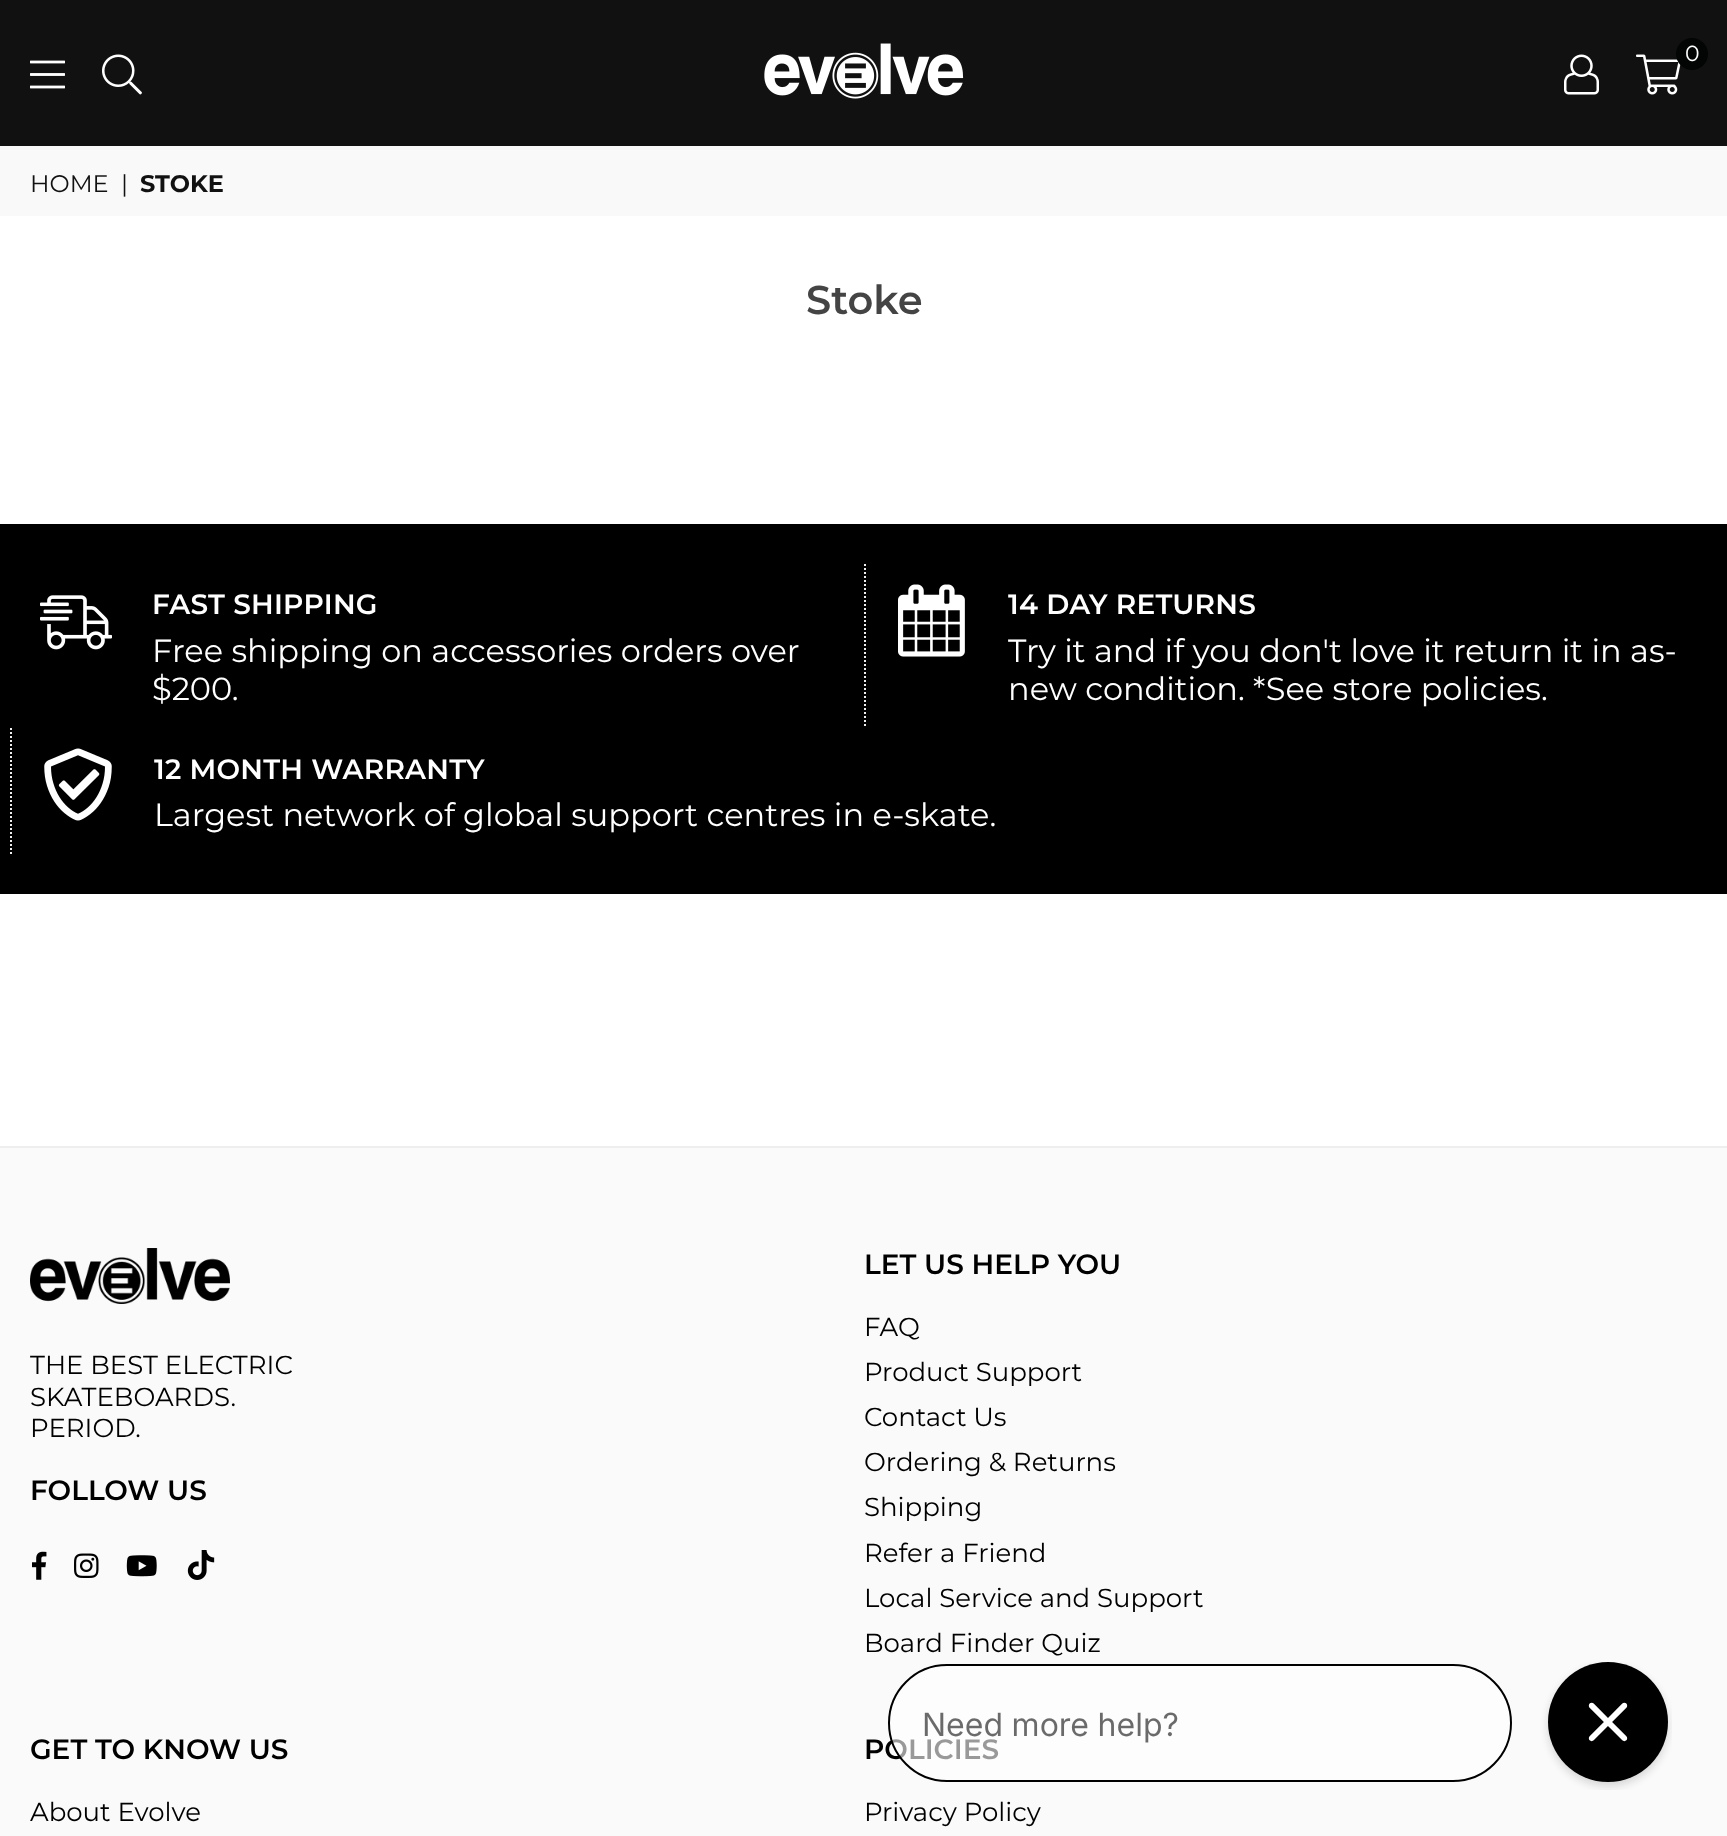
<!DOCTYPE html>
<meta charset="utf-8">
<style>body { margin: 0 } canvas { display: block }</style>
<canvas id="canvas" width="1727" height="1836"></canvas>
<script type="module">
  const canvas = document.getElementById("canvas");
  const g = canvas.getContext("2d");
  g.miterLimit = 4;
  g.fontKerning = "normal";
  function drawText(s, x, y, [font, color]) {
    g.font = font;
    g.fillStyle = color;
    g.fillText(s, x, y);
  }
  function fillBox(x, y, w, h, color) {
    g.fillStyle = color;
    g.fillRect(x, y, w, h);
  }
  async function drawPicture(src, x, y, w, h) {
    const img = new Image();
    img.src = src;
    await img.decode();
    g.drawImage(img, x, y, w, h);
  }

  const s1 = ["100 22px Montserrat", "#FFFFFF"];
  const s2 = ["100 24px Montserrat", "#111111"];
  const s3 = ["bold 24px Montserrat", "#111111"];
  const s4 = ["600 40px Montserrat", "#444444"];
  const s5 = ["600 28px Montserrat", "#FFFFFF"];
  const s6 = ["100 32px Montserrat", "#FFFFFF"];
  const s7 = ["100 26px Montserrat", "#000000"];
  const s8 = ["600 28px Montserrat", "#000000"];

  fillBox(0, 0, 1727, 1836, "#FFFFFF");
  fillBox(0, 0, 1727, 146, "#111111");
  await drawPicture("pic1.png", 30, 60, 35, 29);
  await drawPicture("pic2.png", 102, 54, 40, 41);
  await drawPicture("pic3.png", 764, 43, 200, 56);
  await drawPicture("pic4.png", 1564, 54, 35, 41);
  await drawPicture("pic5.png", 1636, 54, 45, 41);
  g.fillStyle = "#030505";
  g.beginPath();
  g.arc(1692, 54, 16, 0, Math.PI * 2);
  g.fill();
  drawText("0", 1685, 61, s1);
  fillBox(0, 146, 1727, 70, "#F9F9F9");
  drawText("HOME", 30, 192, s2);
  drawText("|", 121, 192, s2);
  drawText("STOKE", 140, 192, s3);
  drawText("Stoke", 806, 314, s4);
  fillBox(0, 524, 1727, 370, "#000000");
  await drawPicture("pic6.png", 40, 595, 72, 55);
  g.letterSpacing = "0.25px";
  drawText("FAST SHIPPING", 152, 614, s5);
  g.letterSpacing = "0px";
  drawText("Free shipping on accessories orders over", 152, 662, s6);
  drawText("$200.", 152, 700, s6);
  g.beginPath();
  g.moveTo(865, 564);
  g.lineTo(865, 728);
  g.strokeStyle = "#EEEEEE";
  g.lineWidth = 2;
  g.setLineDash([2, 2]);
  g.stroke();
  await drawPicture("pic7.png", 898, 584, 67, 73);
  g.letterSpacing = "0.25px";
  drawText("14 DAY RETURNS", 1008, 614, s5);
  g.letterSpacing = "0px";
  drawText("Try it and if you don't love it return it in as-", 1008, 662, s6);
  drawText("new condition. *See store policies.", 1008, 700, s6);
  g.beginPath();
  g.moveTo(11, 728);
  g.lineTo(11, 854);
  g.stroke();
  await drawPicture("pic8.png", 44, 748, 68, 73);
  g.letterSpacing = "0.25px";
  drawText("12 MONTH WARRANTY", 154, 779, s5);
  g.letterSpacing = "0px";
  drawText("Largest network of global support centres in e-skate.", 154, 826, s6);
  fillBox(0, 1148, 1727, 688, "#FAFAFA");
  fillBox(0, 1146, 1727, 2, "#EEEEEE");
  await drawPicture("pic9.png", 30, 1248, 200, 56);
  drawText("THE BEST ELECTRIC", 30, 1374, s7);
  drawText("SKATEBOARDS.", 30, 1406, s7);
  drawText("PERIOD.", 30, 1437, s7);
  drawText("FOLLOW US", 30, 1500, s8);
  await drawPicture("pic10.png", 32, 1551, 15, 29);
  await drawPicture("pic11.png", 74, 1553, 25, 25);
  await drawPicture("pic12.png", 126, 1555, 31, 22);
  await drawPicture("pic13.png", 187, 1550, 28, 30);
  drawText("LET US HELP YOU", 864, 1274, s8);
  drawText("FAQ", 864, 1336, s7);
  drawText("Product Support", 864, 1381, s7);
  drawText("Contact Us", 864, 1426, s7);
  drawText("Ordering & Returns", 864, 1471, s7);
  drawText("Shipping", 864, 1516, s7);
  drawText("Refer a Friend", 864, 1562, s7);
  drawText("Local Service and Support", 864, 1607, s7);
  drawText("Board Finder Quiz", 864, 1652, s7);
  drawText("GET TO KNOW US", 30, 1759, s8);
  drawText("About Evolve", 30, 1821, s7);
  drawText("POLICIES", 864, 1759, s8);
  drawText("Privacy Policy", 864, 1821, s7);
  await drawPicture("pic14.png", 888, 1662, 784, 128);
</script>
